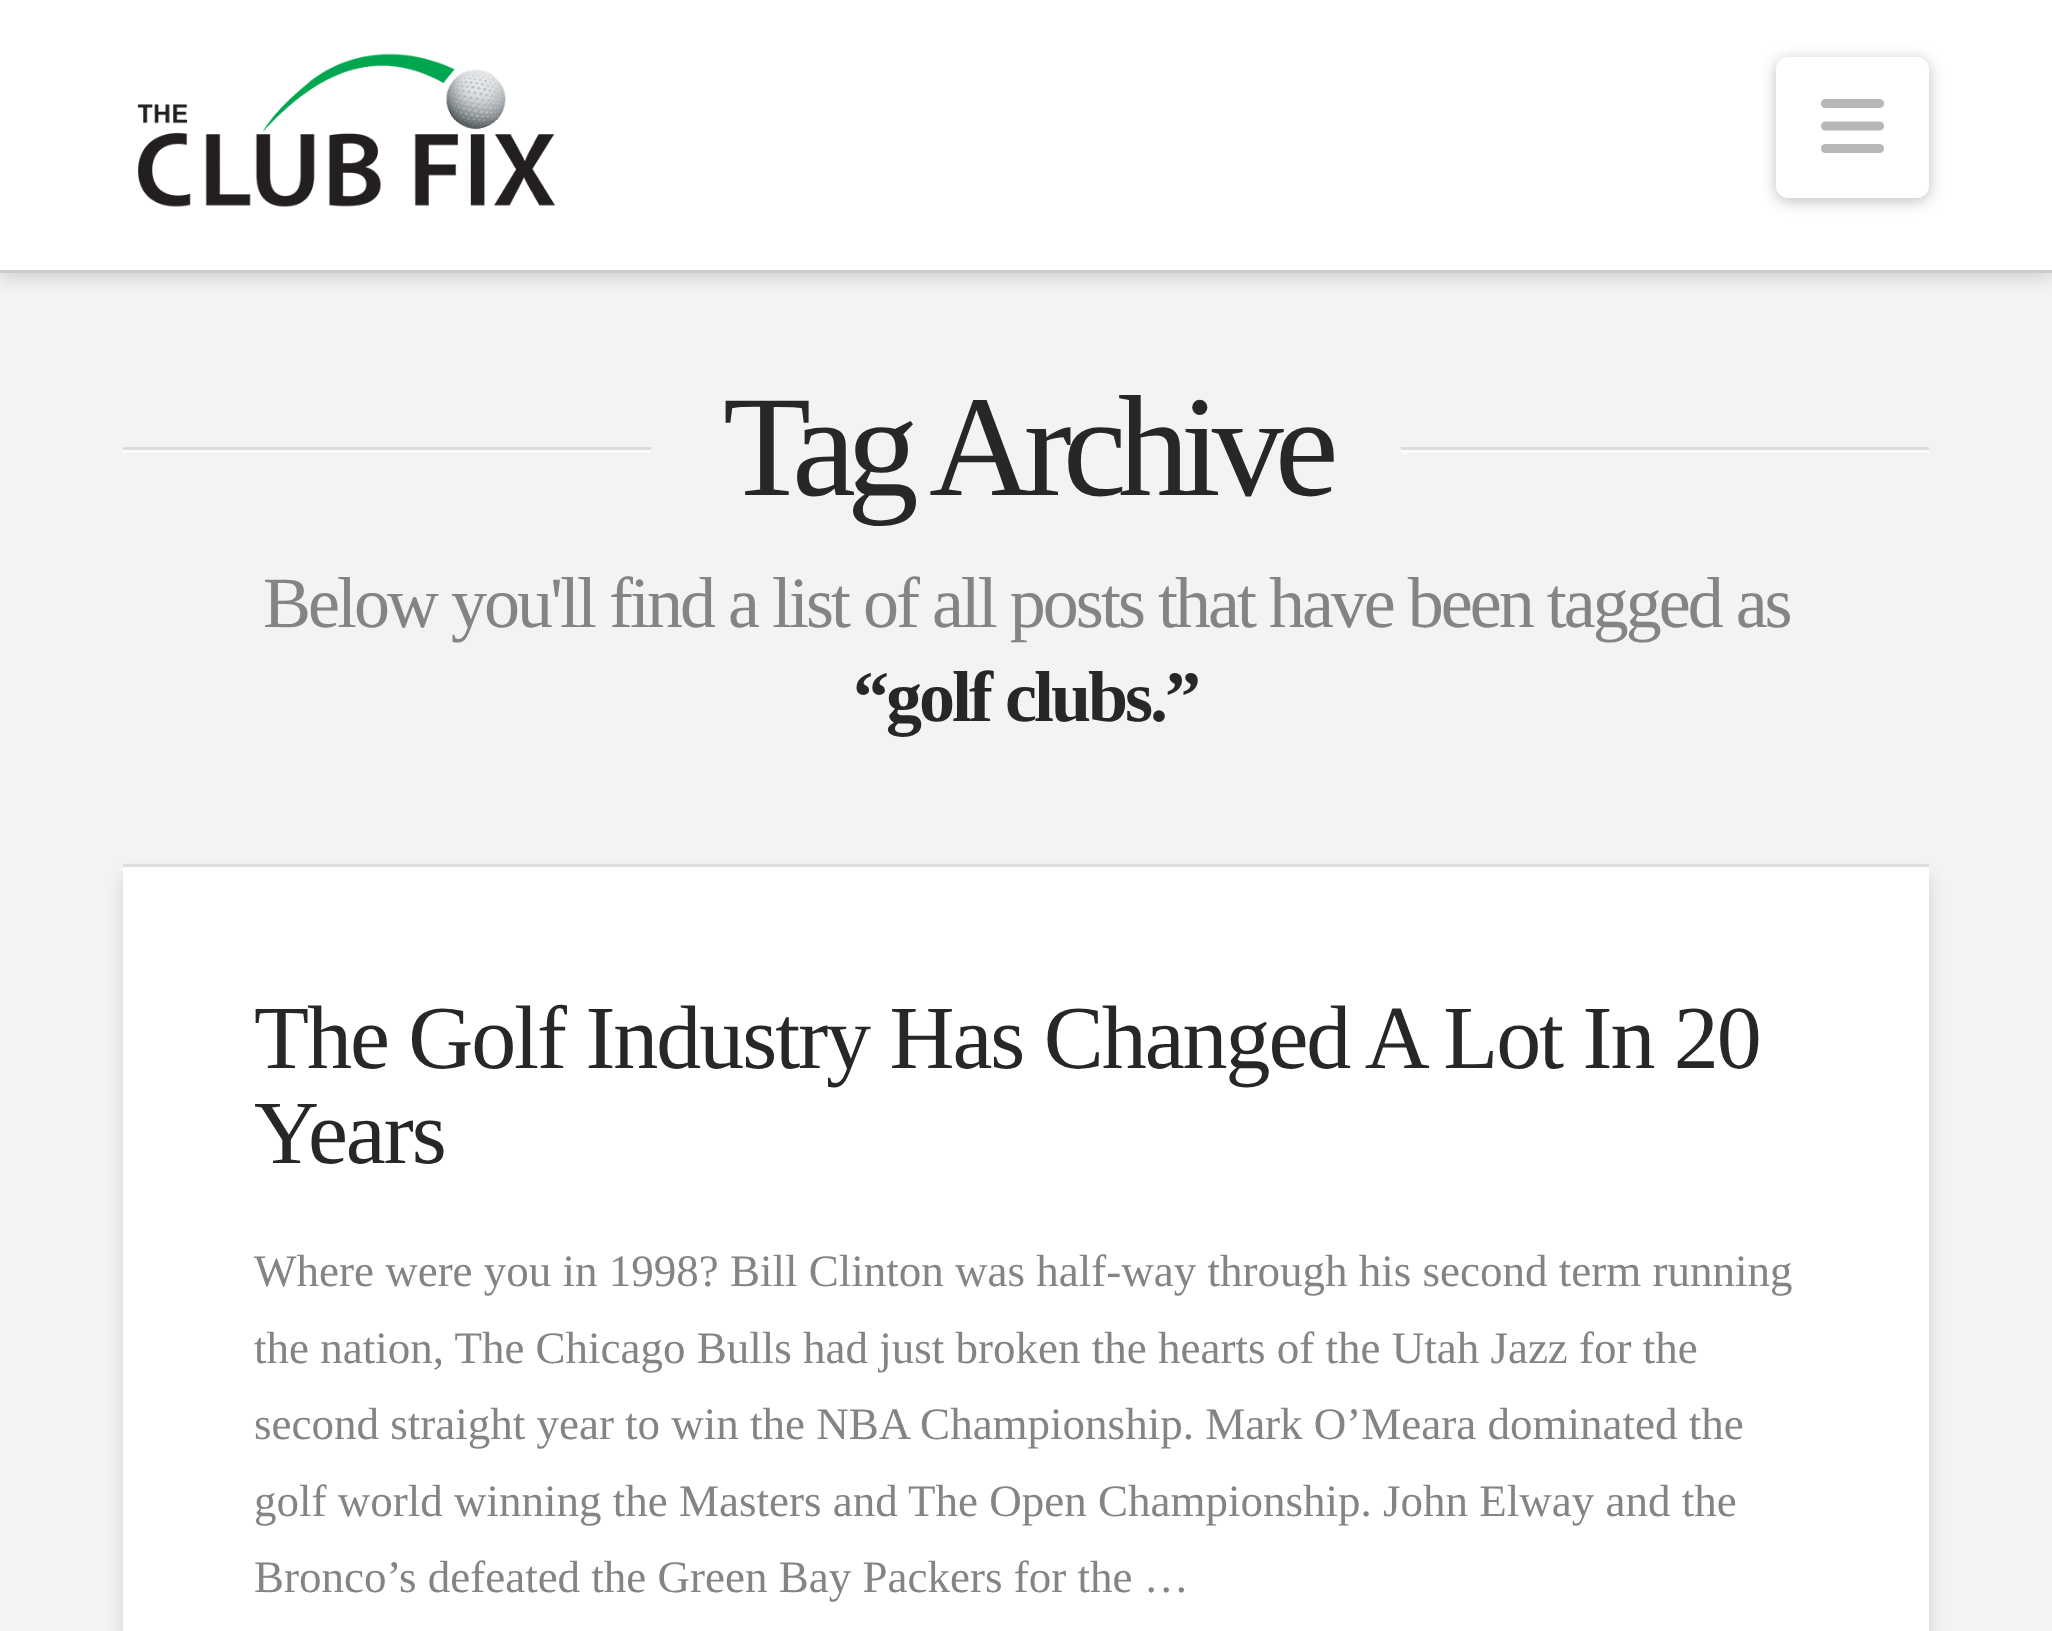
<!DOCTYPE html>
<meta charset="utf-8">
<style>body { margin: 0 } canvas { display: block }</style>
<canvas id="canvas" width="2052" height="1631"></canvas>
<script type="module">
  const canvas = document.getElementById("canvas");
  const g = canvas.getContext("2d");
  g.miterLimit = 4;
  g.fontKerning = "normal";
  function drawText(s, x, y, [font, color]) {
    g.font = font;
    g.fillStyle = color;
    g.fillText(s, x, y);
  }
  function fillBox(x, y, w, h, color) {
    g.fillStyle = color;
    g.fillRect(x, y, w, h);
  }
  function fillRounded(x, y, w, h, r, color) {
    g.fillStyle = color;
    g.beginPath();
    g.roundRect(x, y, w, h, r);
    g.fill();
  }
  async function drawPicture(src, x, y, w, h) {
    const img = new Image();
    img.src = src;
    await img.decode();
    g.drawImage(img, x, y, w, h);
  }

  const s1 = ["144px Liberation Serif", "#272727"];
  const s2 = ["72px Liberation Serif", "#848484"];
  const s3 = ["bold 72px Liberation Serif", "#272727"];
  const s4 = ["90px Liberation Serif", "#272727"];
  const s5 = ["45px Liberation Serif", "#848484"];

  fillBox(0, 0, 2052, 1631, "#F3F3F3");
  g.fillStyle = "rgba(0, 0, 0, 0.13)";
  g.filter = "blur(8px)";
  g.beginPath();
  g.rect(0, 6, 2052, 273);
  g.fill();
  g.filter = "none";
  fillBox(0, 0, 2052, 270, "#FFFFFF");
  fillBox(0, 270, 2052, 3, "#CCCCCC");
  await drawPicture("pic1.png", 137, 53, 419, 154);
  g.fillStyle = "rgba(0, 0, 0, 0.25)";
  g.filter = "blur(7.5px)";
  g.beginPath();
  g.roundRect(1776, 60, 153, 141, 12);
  g.fill();
  g.filter = "none";
  fillRounded(1776, 57, 153, 141, 12, "#FFFFFF");
  await drawPicture("pic2.png", 1821, 99, 63, 54);
  fillBox(123, 450, 528, 3, "#FDFDFD");
  fillBox(123, 447, 528, 3, "#DBDBDB");
  g.letterSpacing = "-9px";
  drawText("Tag Archive", 723, 495, s1);
  fillBox(1401, 450, 528, 3, "#FDFDFD");
  fillBox(1401, 447, 528, 3, "#DBDBDB");
  g.letterSpacing = "-3px";
  drawText("Below you'll find a list of all posts that have been tagged as", 263, 627, s2);
  drawText("“golf clubs.”", 853, 721, s3);
  g.fillStyle = "rgba(0, 0, 0, 0.13)";
  g.filter = "blur(8px)";
  g.beginPath();
  g.roundRect(123, 873, 1806, 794, 12);
  g.fill();
  g.filter = "none";
  fillBox(123, 864, 1806, 3, "#DDDDDD");
  fillBox(123, 867, 1806, 764, "#FFFFFF");
  g.letterSpacing = "-2.05px";
  drawText("The Golf Industry Has Changed A Lot In 20", 254, 1068, s4);
  drawText("Years", 254, 1163, s4);
  g.letterSpacing = "0px";
  drawText("Where were you in 1998? Bill Clinton was half-way through his second term running", 254, 1286, s5);
  drawText("the nation, The Chicago Bulls had just broken the hearts of the Utah Jazz for the", 254, 1363, s5);
  drawText("second straight year to win the NBA Championship. Mark O’Meara dominated the", 254, 1439, s5);
  drawText("golf world winning the Masters and The Open Championship. John Elway and the", 254, 1516, s5);
  drawText("Bronco’s defeated the Green Bay Packers for the …", 254, 1592, s5);
</script>
